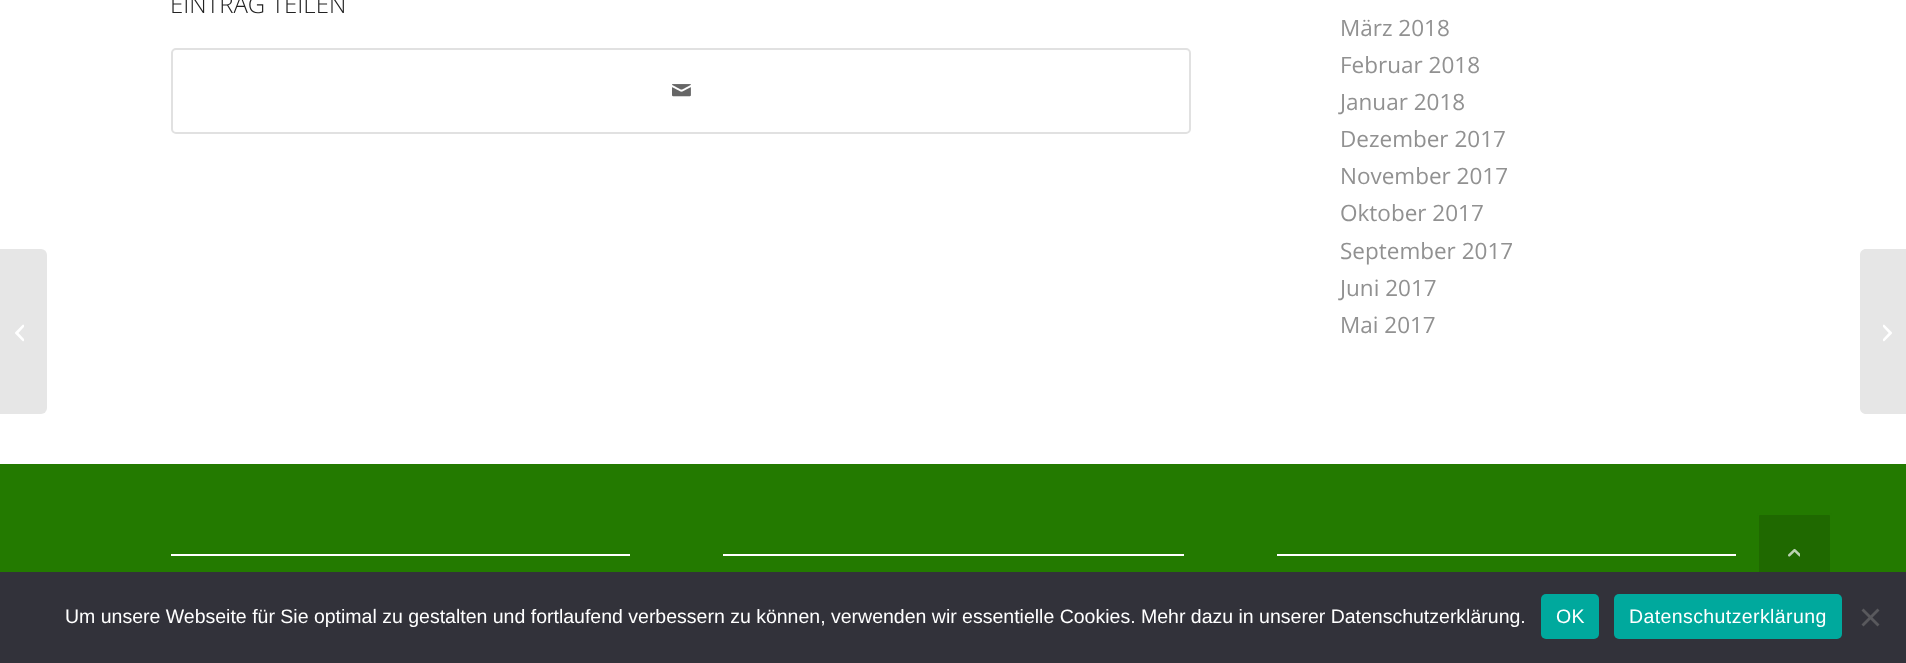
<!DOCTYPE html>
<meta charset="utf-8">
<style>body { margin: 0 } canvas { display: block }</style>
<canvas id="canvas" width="1906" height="663"></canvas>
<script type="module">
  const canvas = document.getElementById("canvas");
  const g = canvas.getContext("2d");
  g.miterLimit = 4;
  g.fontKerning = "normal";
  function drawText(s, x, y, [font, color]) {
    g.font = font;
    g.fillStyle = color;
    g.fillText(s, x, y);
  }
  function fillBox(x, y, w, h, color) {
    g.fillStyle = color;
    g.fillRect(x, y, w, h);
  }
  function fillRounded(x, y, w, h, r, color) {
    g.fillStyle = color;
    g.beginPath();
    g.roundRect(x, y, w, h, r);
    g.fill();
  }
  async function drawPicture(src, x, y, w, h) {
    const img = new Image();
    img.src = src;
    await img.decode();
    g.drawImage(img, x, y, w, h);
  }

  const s1 = ["300 24px Open Sans", "#222222"];
  const s2 = ["22.5px Open Sans", "#919191"];
  const s3 = ["19.5px Liberation Sans", "#FFFFFF"];

  fillBox(0, 0, 1906, 663, "#FFFFFF");
  g.fillStyle = "#E6E6E6";
  g.beginPath();
  g.roundRect(0, 249, 47, 165, [0, 6, 6, 0]);
  g.fill();
  await drawPicture("pic1.png", 15, 324, 9, 18);
  drawText("EINTRAG TEILEN", 170, 13, s1);
  g.beginPath();
  g.roundRect(172, 49, 1018, 84, 4);
  g.strokeStyle = "#E1E1E1";
  g.lineWidth = 2;
  g.stroke();
  await drawPicture("pic2.png", 672, 84, 19, 13);
  drawText("März 2018", 1340, 36, s2);
  drawText("Februar 2018", 1340, 73, s2);
  drawText("Januar 2018", 1340, 110, s2);
  drawText("Dezember 2017", 1340, 147, s2);
  drawText("November 2017", 1340, 184, s2);
  drawText("Oktober 2017", 1340, 221, s2);
  drawText("September 2017", 1340, 259, s2);
  drawText("Juni 2017", 1340, 296, s2);
  drawText("Mai 2017", 1340, 333, s2);
  fillBox(0, 464, 1906, 108, "#237A00");
  fillBox(171, 554, 459, 2, "#FFFFFF");
  fillBox(723, 554, 461, 2, "#FFFFFF");
  fillBox(1277, 554, 459, 2, "#FFFFFF");
  g.fillStyle = "#E6E6E6";
  g.beginPath();
  g.moveTo(1866, 249);
  g.lineTo(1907, 249);
  g.lineTo(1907, 414);
  g.lineTo(1866, 414);
  g.bezierCurveTo(1862.5, 414, 1860, 411.5, 1860, 408);
  g.lineTo(1860, 255);
  g.bezierCurveTo(1860, 251.5, 1862.5, 249, 1866, 249);
  g.closePath();
  g.fill();
  await drawPicture("pic3.png", 1883, 324, 9, 18);
  g.fillStyle = "#1F6900";
  g.beginPath();
  g.roundRect(1758, 514, 73, 73, 2);
  g.fill();
  g.strokeStyle = "#237A00";
  g.stroke();
  await drawPicture("pic4.png", 1788, 548, 12, 9);
  fillBox(0, 572, 1906, 91, "#32323A");
  drawText("Um unsere Webseite für Sie optimal zu gestalten und fortlaufend verbessern zu können, verwenden wir essentielle Cookies. Mehr dazu in unserer Datenschutzerklärung.", 65, 623, s3);
  fillRounded(1541, 594, 58, 45, 5, "#00A99D");
  g.letterSpacing = "0.4px";
  drawText("OK", 1556, 623, s3);
  fillRounded(1614, 594, 228, 45, 5, "#00A99D");
  drawText("Datenschutzerklärung", 1629, 623, s3);
  g.fillStyle = "#59595D";
  g.beginPath();
  g.moveTo(1877.5, 608.5);
  g.lineTo(1879.5, 610.5);
  g.lineTo(1863.5, 626.5);
  g.lineTo(1861.5, 624.5);
  g.closePath();
  g.fill();
  g.beginPath();
  g.moveTo(1861.5, 610.5);
  g.lineTo(1863.5, 608.5);
  g.lineTo(1879.5, 624.5);
  g.lineTo(1877.5, 626.5);
  g.closePath();
  g.fill();
</script>
